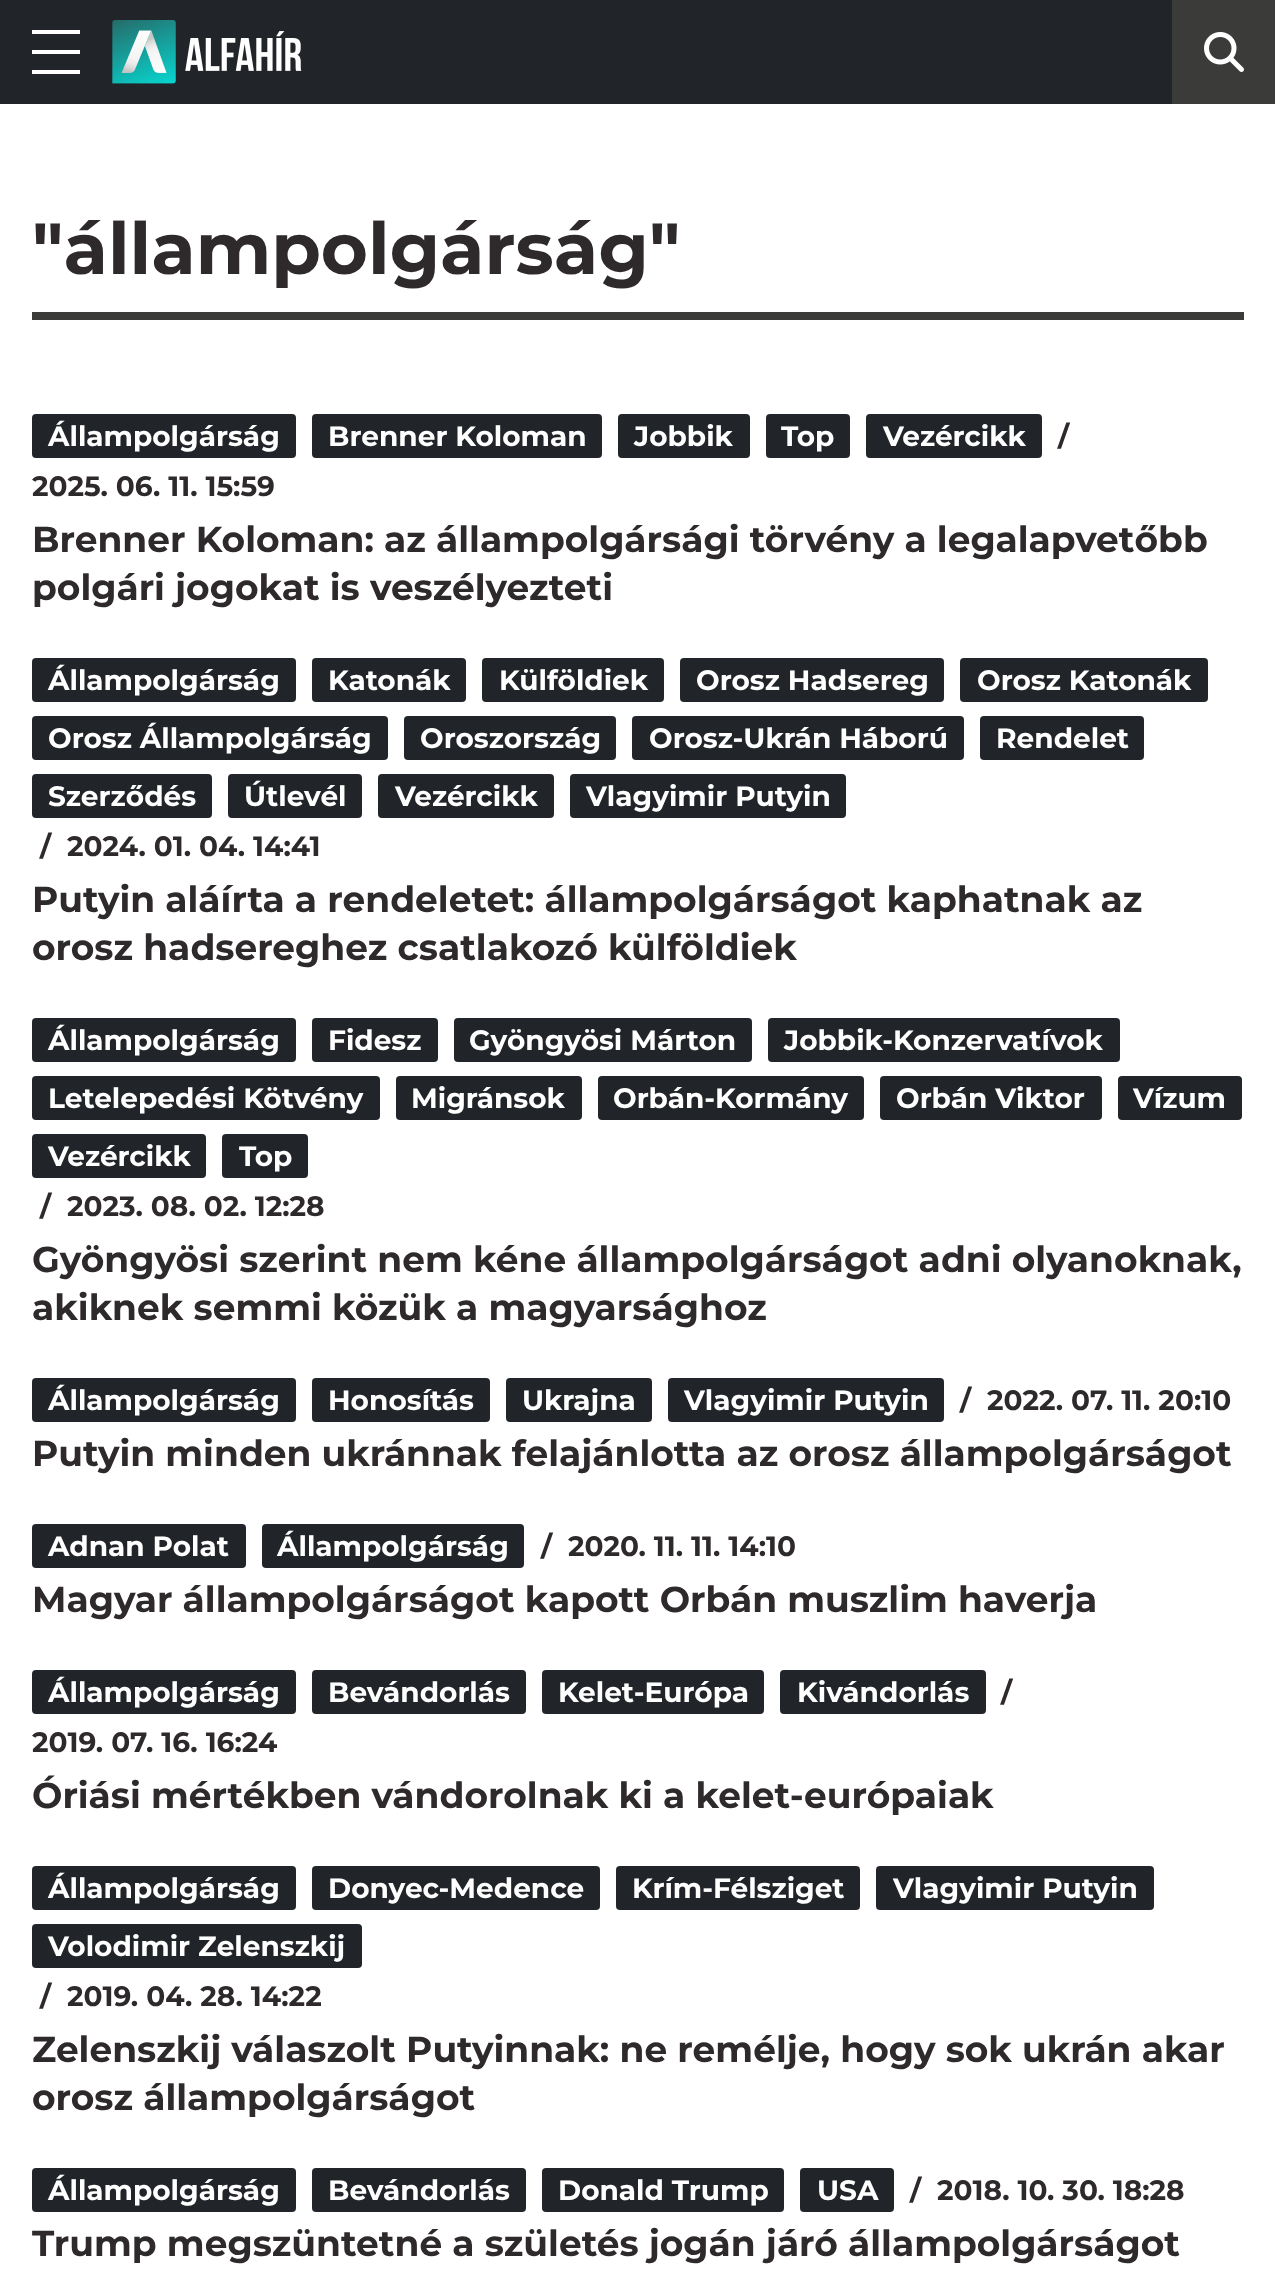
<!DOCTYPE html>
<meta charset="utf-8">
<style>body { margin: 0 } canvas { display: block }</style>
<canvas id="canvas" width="1275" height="2282"></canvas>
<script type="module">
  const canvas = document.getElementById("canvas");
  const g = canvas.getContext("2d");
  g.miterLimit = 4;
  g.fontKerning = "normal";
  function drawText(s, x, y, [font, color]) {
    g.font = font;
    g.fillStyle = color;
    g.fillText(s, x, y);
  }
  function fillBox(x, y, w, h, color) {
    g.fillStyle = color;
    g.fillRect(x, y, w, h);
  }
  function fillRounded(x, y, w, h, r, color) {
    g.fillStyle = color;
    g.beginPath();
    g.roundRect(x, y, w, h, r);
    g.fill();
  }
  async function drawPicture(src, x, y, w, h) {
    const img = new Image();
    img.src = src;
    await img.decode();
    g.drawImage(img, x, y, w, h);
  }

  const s1 = ["bold 72px Montserrat", "#2E292A"];
  const s2 = ["bold 28px Montserrat", "#FFFFFF"];
  const s3 = ["bold 28px Montserrat", "#2E292A"];
  const s4 = ["bold 36px Montserrat", "#2E292A"];

  fillBox(0, 0, 1275, 2282, "#FFFFFF");
  fillBox(0, 0, 1172, 104, "#212529");
  fillBox(32, 30, 48, 4, "#FFFFFF");
  fillBox(32, 50, 48, 4, "#FFFFFF");
  fillBox(32, 70, 48, 4, "#FFFFFF");
  await drawPicture("pic1.png", 112, 20, 190, 64);
  fillBox(1172, 0, 103, 104, "#3B3B3A");
  await drawPicture("pic2.png", 1204, 32, 40, 40);
  fillBox(32, 312, 1212, 8, "#3B3B3A");
  drawText("\"állampolgárság\"", 32, 274, s1);
  fillRounded(32, 414, 264, 44, 4, "#212529");
  drawText("Állampolgárság", 48, 446, s2);
  fillRounded(312, 414, 290, 44, 4, "#212529");
  drawText("Brenner Koloman", 328, 446, s2);
  fillRounded(618, 414, 132, 44, 4, "#212529");
  drawText("Jobbik", 634, 446, s2);
  fillRounded(766, 414, 84, 44, 4, "#212529");
  drawText("Top", 781, 446, s2);
  fillRounded(866, 414, 176, 44, 4, "#212529");
  drawText("Vezércikk", 883, 446, s2);
  drawText("/", 1058, 446, s3);
  drawText("2025. 06. 11. 15:59", 32, 496, s3);
  drawText("Brenner Koloman: az állampolgársági törvény a legalapvetőbb", 32, 552, s4);
  drawText("polgári jogokat is veszélyezteti", 32, 600, s4);
  fillRounded(32, 658, 264, 44, 4, "#212529");
  drawText("Állampolgárság", 48, 690, s2);
  fillRounded(312, 658, 154, 44, 4, "#212529");
  drawText("Katonák", 328, 690, s2);
  fillRounded(482, 658, 182, 44, 4, "#212529");
  drawText("Külföldiek", 499, 690, s2);
  fillRounded(680, 658, 264, 44, 4, "#212529");
  drawText("Orosz Hadsereg", 696, 690, s2);
  fillRounded(960, 658, 248, 44, 4, "#212529");
  drawText("Orosz Katonák", 977, 690, s2);
  fillRounded(32, 716, 356, 44, 4, "#212529");
  drawText("Orosz Állampolgárság", 48, 748, s2);
  fillRounded(404, 716, 212, 44, 4, "#212529");
  drawText("Oroszország", 420, 748, s2);
  fillRounded(632, 716, 332, 44, 4, "#212529");
  drawText("Orosz-Ukrán Háború", 649, 748, s2);
  fillRounded(980, 716, 164, 44, 4, "#212529");
  drawText("Rendelet", 996, 748, s2);
  fillRounded(32, 774, 180, 44, 4, "#212529");
  drawText("Szerződés", 48, 806, s2);
  fillRounded(228, 774, 134, 44, 4, "#212529");
  drawText("Útlevél", 244, 806, s2);
  fillRounded(378, 774, 176, 44, 4, "#212529");
  drawText("Vezércikk", 395, 806, s2);
  fillRounded(570, 774, 276, 44, 4, "#212529");
  drawText("Vlagyimir Putyin", 586, 806, s2);
  drawText("/", 40, 856, s3);
  drawText("2024. 01. 04. 14:41", 67, 856, s3);
  drawText("Putyin aláírta a rendeletet: állampolgárságot kaphatnak az", 32, 912, s4);
  drawText("orosz hadsereghez csatlakozó külföldiek", 32, 960, s4);
  fillRounded(32, 1018, 264, 44, 4, "#212529");
  drawText("Állampolgárság", 48, 1050, s2);
  fillRounded(312, 1018, 126, 44, 4, "#212529");
  drawText("Fidesz", 328, 1050, s2);
  fillRounded(454, 1018, 298, 44, 4, "#212529");
  drawText("Gyöngyösi Márton", 469, 1050, s2);
  fillRounded(768, 1018, 352, 44, 4, "#212529");
  drawText("Jobbik-Konzervatívok", 784, 1050, s2);
  fillRounded(32, 1076, 348, 44, 4, "#212529");
  drawText("Letelepedési Kötvény", 48, 1108, s2);
  fillRounded(396, 1076, 186, 44, 4, "#212529");
  drawText("Migránsok", 411, 1108, s2);
  fillRounded(598, 1076, 266, 44, 4, "#212529");
  drawText("Orbán-Kormány", 613, 1108, s2);
  fillRounded(880, 1076, 222, 44, 4, "#212529");
  drawText("Orbán Viktor", 896, 1108, s2);
  fillRounded(1118, 1076, 124, 44, 4, "#212529");
  drawText("Vízum", 1133, 1108, s2);
  fillRounded(32, 1134, 174, 44, 4, "#212529");
  drawText("Vezércikk", 48, 1166, s2);
  fillRounded(222, 1134, 86, 44, 4, "#212529");
  drawText("Top", 239, 1166, s2);
  drawText("/", 40, 1216, s3);
  drawText("2023. 08. 02. 12:28", 67, 1216, s3);
  drawText("Gyöngyösi szerint nem kéne állampolgárságot adni olyanoknak,", 32, 1272, s4);
  drawText("akiknek semmi közük a magyarsághoz", 32, 1320, s4);
  fillRounded(32, 1378, 264, 44, 4, "#212529");
  drawText("Állampolgárság", 48, 1410, s2);
  fillRounded(312, 1378, 178, 44, 4, "#212529");
  drawText("Honosítás", 328, 1410, s2);
  fillRounded(506, 1378, 146, 44, 4, "#212529");
  drawText("Ukrajna", 522, 1410, s2);
  fillRounded(668, 1378, 276, 44, 4, "#212529");
  drawText("Vlagyimir Putyin", 684, 1410, s2);
  drawText("/", 960, 1410, s3);
  drawText("2022. 07. 11. 20:10", 987, 1410, s3);
  drawText("Putyin minden ukránnak felajánlotta az orosz állampolgárságot", 32, 1466, s4);
  fillRounded(32, 1524, 214, 44, 4, "#212529");
  drawText("Adnan Polat", 48, 1556, s2);
  fillRounded(262, 1524, 262, 44, 4, "#212529");
  drawText("Állampolgárság", 277, 1556, s2);
  drawText("/", 541, 1556, s3);
  drawText("2020. 11. 11. 14:10", 568, 1556, s3);
  drawText("Magyar állampolgárságot kapott Orbán muszlim haverja", 32, 1612, s4);
  fillRounded(32, 1670, 264, 44, 4, "#212529");
  drawText("Állampolgárság", 48, 1702, s2);
  fillRounded(312, 1670, 214, 44, 4, "#212529");
  drawText("Bevándorlás", 328, 1702, s2);
  fillRounded(542, 1670, 222, 44, 4, "#212529");
  drawText("Kelet-Európa", 558, 1702, s2);
  fillRounded(780, 1670, 206, 44, 4, "#212529");
  drawText("Kivándorlás", 797, 1702, s2);
  drawText("/", 1001, 1702, s3);
  drawText("2019. 07. 16. 16:24", 32, 1752, s3);
  drawText("Óriási mértékben vándorolnak ki a kelet-európaiak", 32, 1808, s4);
  fillRounded(32, 1866, 264, 44, 4, "#212529");
  drawText("Állampolgárság", 48, 1898, s2);
  fillRounded(312, 1866, 288, 44, 4, "#212529");
  drawText("Donyec-Medence", 328, 1898, s2);
  fillRounded(616, 1866, 244, 44, 4, "#212529");
  drawText("Krím-Félsziget", 632, 1898, s2);
  fillRounded(876, 1866, 278, 44, 4, "#212529");
  drawText("Vlagyimir Putyin", 893, 1898, s2);
  fillRounded(32, 1924, 330, 44, 4, "#212529");
  drawText("Volodimir Zelenszkij", 48, 1956, s2);
  drawText("/", 40, 2006, s3);
  drawText("2019. 04. 28. 14:22", 67, 2006, s3);
  drawText("Zelenszkij válaszolt Putyinnak: ne remélje, hogy sok ukrán akar", 32, 2062, s4);
  drawText("orosz állampolgárságot", 32, 2110, s4);
  fillRounded(32, 2168, 264, 44, 4, "#212529");
  drawText("Állampolgárság", 48, 2200, s2);
  fillRounded(312, 2168, 214, 44, 4, "#212529");
  drawText("Bevándorlás", 328, 2200, s2);
  fillRounded(542, 2168, 242, 44, 4, "#212529");
  drawText("Donald Trump", 558, 2200, s2);
  fillRounded(800, 2168, 94, 44, 4, "#212529");
  drawText("USA", 817, 2200, s2);
  drawText("/", 910, 2200, s3);
  drawText("2018. 10. 30. 18:28", 937, 2200, s3);
  drawText("Trump megszüntetné a születés jogán járó állampolgárságot", 32, 2256, s4);
</script>
